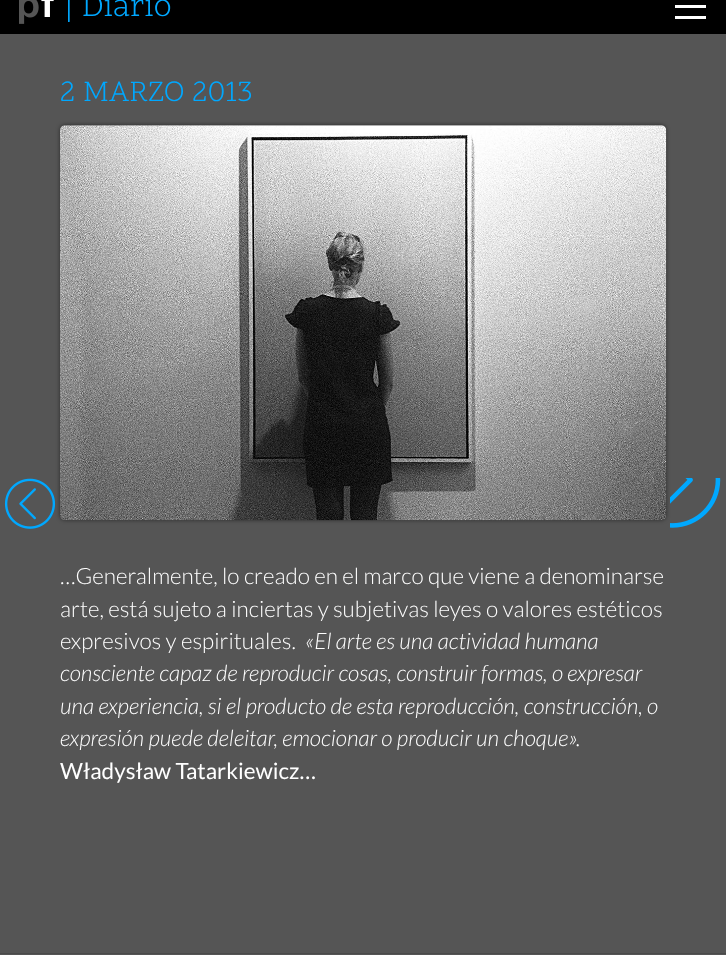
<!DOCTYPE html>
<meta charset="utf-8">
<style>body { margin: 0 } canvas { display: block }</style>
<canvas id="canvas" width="726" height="955"></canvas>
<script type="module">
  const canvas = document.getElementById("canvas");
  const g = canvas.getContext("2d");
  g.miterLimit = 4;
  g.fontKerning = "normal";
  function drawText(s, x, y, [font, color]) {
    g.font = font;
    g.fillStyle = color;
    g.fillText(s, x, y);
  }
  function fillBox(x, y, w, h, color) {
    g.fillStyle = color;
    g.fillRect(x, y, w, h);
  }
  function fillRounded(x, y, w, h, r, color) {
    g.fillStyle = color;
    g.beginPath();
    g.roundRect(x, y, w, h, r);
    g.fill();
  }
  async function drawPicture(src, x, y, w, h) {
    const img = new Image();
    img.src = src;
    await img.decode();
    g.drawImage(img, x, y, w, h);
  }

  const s1 = ["32.5px Scope One", "#00A8FF"];
  const s2 = ["30px Scope One", "#00A8FF"];
  const s3 = ["300 22.5px Lato", "#FFFFFF"];
  const s4 = ["italic 300 22.5px Lato", "#FFFFFF"];
  const s5 = ["22.5px Lato", "#FFFFFF"];

  fillBox(0, 0, 726, 955, "#555555");
  fillBox(0, 0, 726, 34, "#000000");
  await drawPicture("pic1.png", 19, 0, 35, 24);
  drawText("| Diario", 64, 16, s1);
  fillBox(675, 5, 31, 3, "#FFFFFF");
  fillBox(675, 16, 31, 3, "#FFFFFF");
  drawText("2 MARZO 2013", 60, 101, s2);
  g.fillStyle = "rgba(0, 0, 0, 0.5)";
  g.filter = "blur(2px)";
  g.beginPath();
  g.roundRect(60, 125, 606, 395, 5);
  g.fill();
  g.filter = "none";
  fillRounded(60, 125, 606, 395, 5, "#4A4A4A");
  await drawPicture("pic2.png", 60, 125, 607, 396);
  drawText("…Generalmente, lo creado en el marco que viene a denominarse", 60, 584, s3);
  drawText("arte, está sujeto a inciertas y subjetivas leyes o valores estéticos", 60, 617, s3);
  drawText("expresivos y espirituales.", 60, 649, s3);
  drawText("«El arte es una actividad humana", 305, 649, s4);
  drawText("consciente capaz de reproducir cosas, construir formas, o expresar", 60, 681, s4);
  drawText("una experiencia, si el producto de esta reproducción, construcción, o", 60, 714, s4);
  drawText("expresión puede deleitar, emocionar o producir un choque».", 60, 746, s4);
  drawText("Władysław Tatarkiewicz…", 60, 779, s5);
  await drawPicture("pic3.png", 4, 478, 52, 51);
  await drawPicture("pic4.png", 670, 478, 51, 50);
  fillBox(0, 953, 726, 1, "#4A4A4A");
</script>
